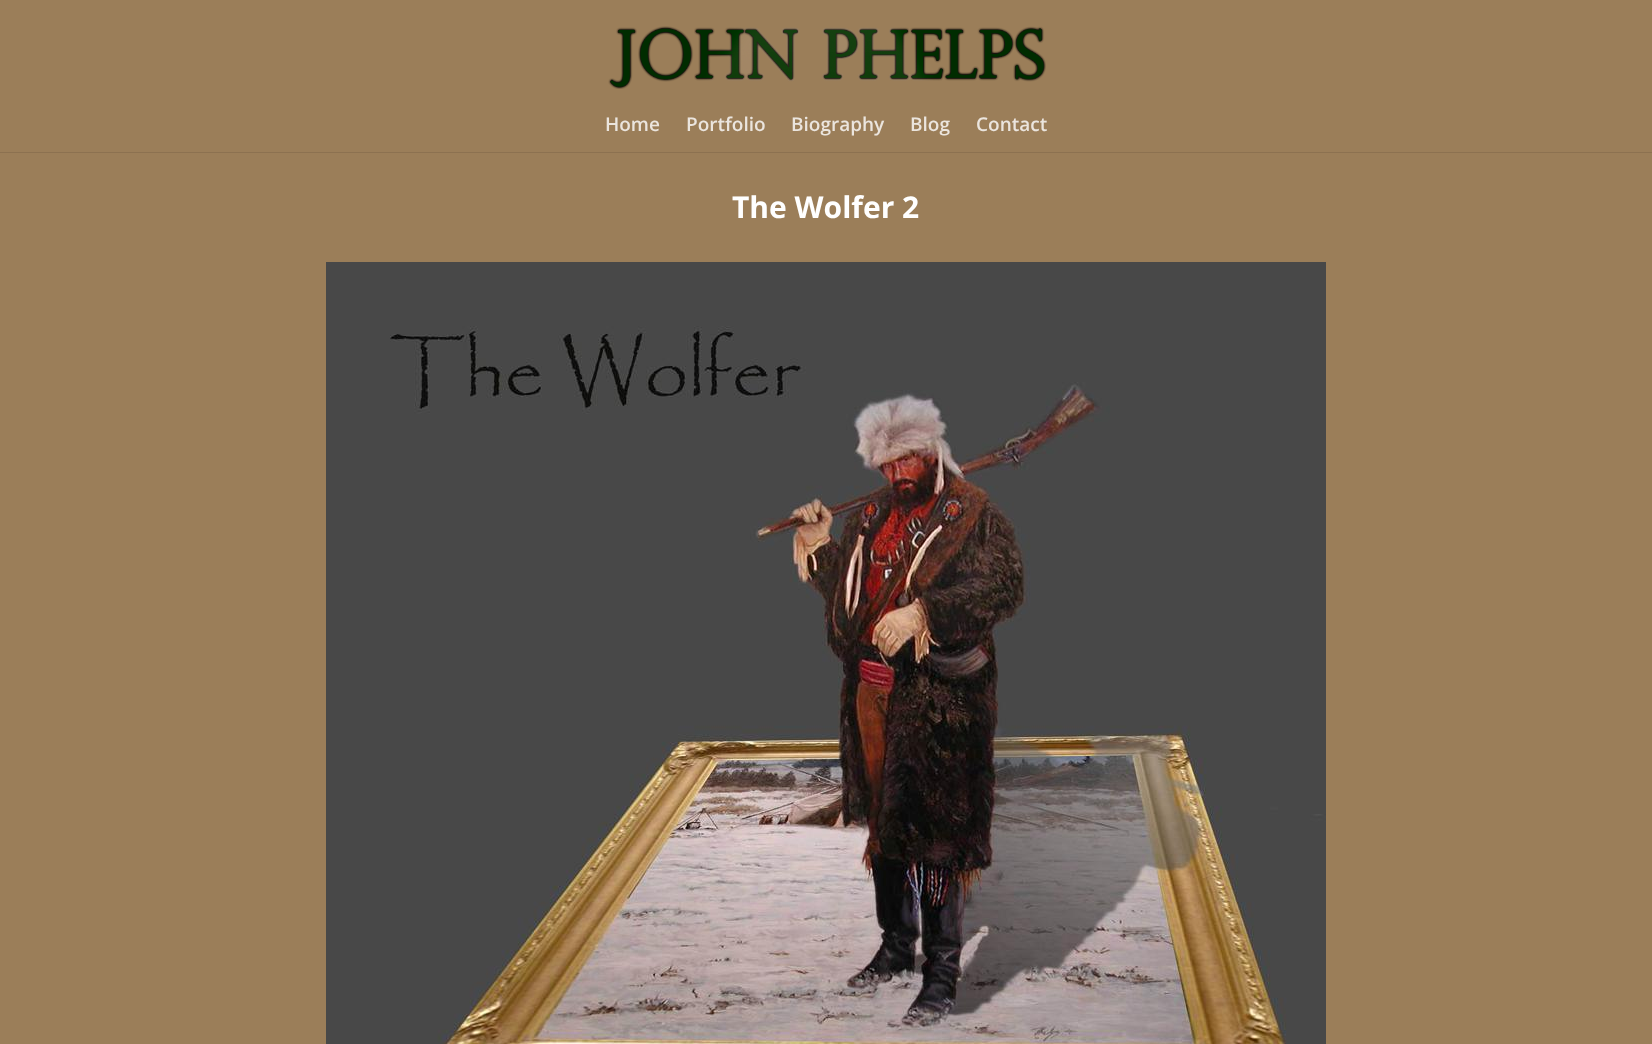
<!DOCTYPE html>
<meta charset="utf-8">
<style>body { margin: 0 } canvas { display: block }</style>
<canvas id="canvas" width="1652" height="1044"></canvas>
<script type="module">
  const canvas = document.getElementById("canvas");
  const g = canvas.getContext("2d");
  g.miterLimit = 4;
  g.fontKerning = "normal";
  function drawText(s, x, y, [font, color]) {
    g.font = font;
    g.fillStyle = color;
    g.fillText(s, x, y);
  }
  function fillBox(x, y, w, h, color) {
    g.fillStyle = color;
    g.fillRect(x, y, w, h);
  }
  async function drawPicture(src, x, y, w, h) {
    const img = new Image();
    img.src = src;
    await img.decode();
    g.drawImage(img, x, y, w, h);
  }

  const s1 = ["600 19px Open Sans", "#EBE5DE"];
  const s2 = ["bold 30px Open Sans", "#FFFFFF"];

  fillBox(0, 0, 1652, 1044, "#9B7E59");
  fillBox(0, 152, 1652, 1, "#8C7150");
  await drawPicture("pic1.png", 608, 26, 438, 63);
  drawText("Home", 605, 131, s1);
  drawText("Portfolio", 686, 131, s1);
  drawText("Biography", 791, 131, s1);
  drawText("Blog", 910, 131, s1);
  drawText("Contact", 976, 131, s1);
  drawText("The Wolfer 2", 732, 218, s2);
  await drawPicture("pic2.png", 326, 262, 1000, 782);
</script>
